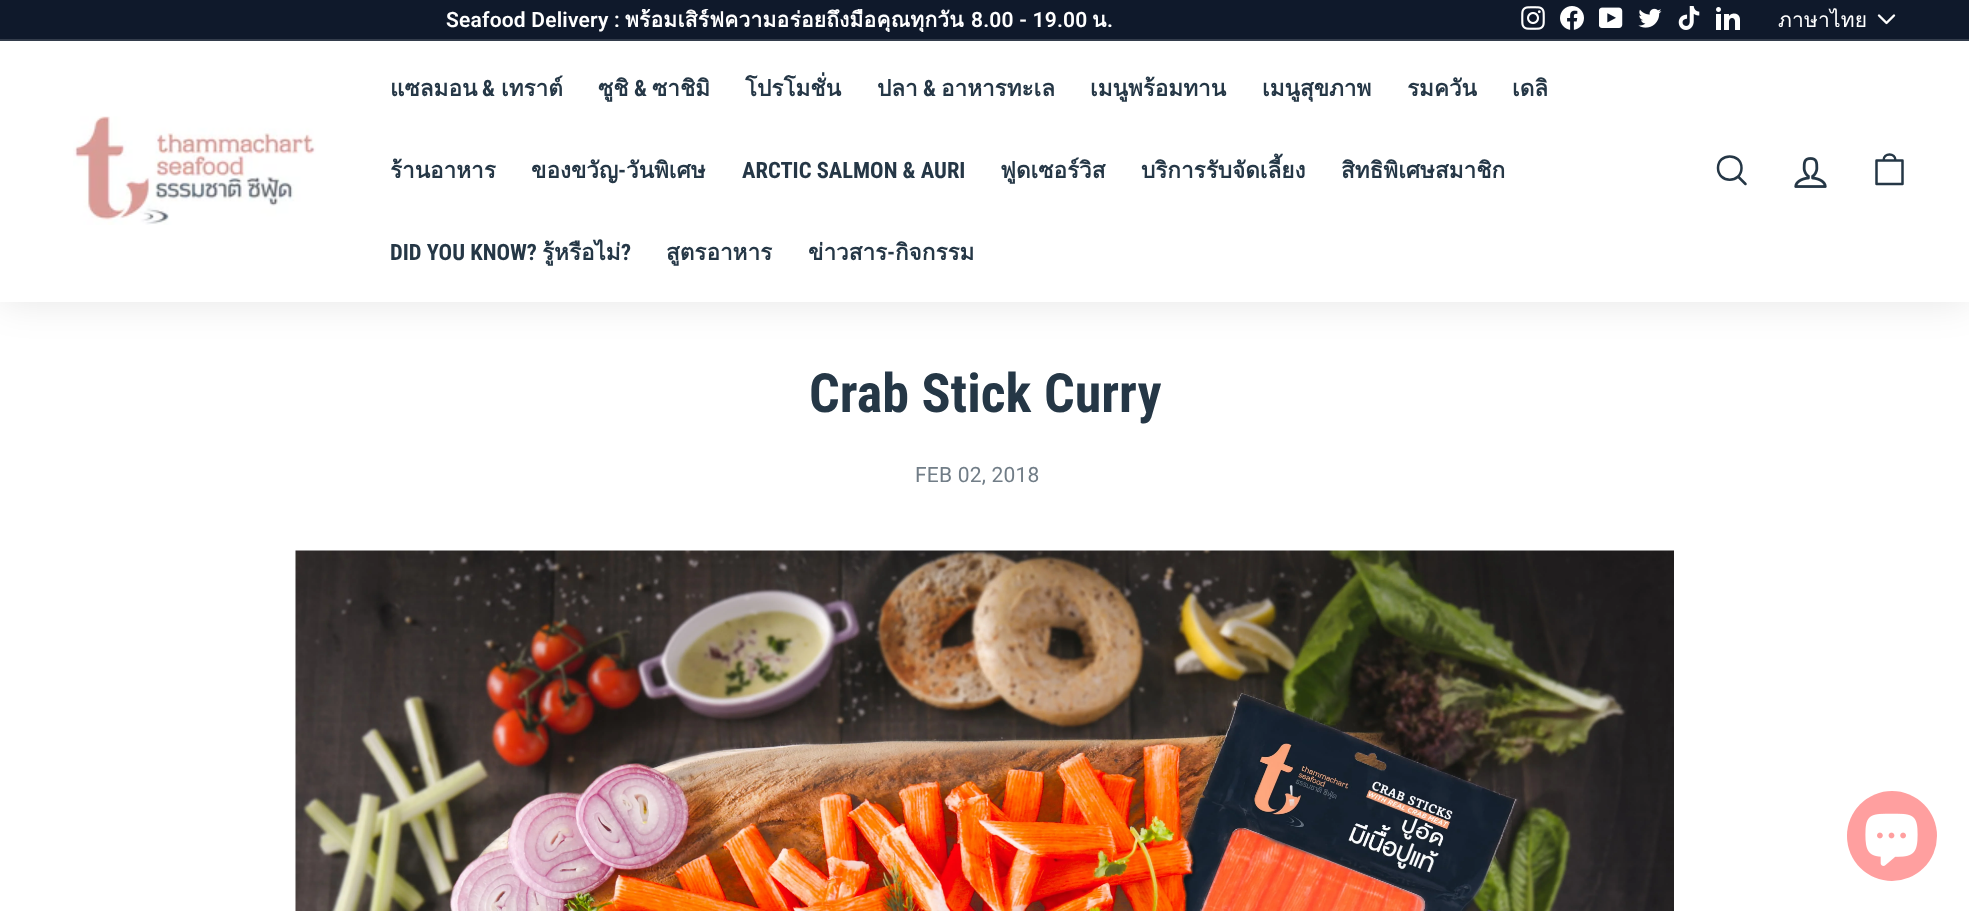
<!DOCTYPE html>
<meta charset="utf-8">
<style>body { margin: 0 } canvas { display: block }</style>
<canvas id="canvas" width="1969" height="911"></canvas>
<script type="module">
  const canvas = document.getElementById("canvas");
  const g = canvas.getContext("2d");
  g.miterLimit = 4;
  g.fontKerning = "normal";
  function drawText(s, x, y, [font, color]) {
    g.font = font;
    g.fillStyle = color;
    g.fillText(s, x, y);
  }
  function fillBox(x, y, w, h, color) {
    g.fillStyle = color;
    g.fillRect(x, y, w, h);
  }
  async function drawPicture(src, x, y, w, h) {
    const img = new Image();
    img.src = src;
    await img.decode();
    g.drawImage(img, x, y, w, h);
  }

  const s1 = ["600 21px Roboto", "#FFFFFF"];
  const s2 = ["bold 21px Loma", "#FFFFFF"];
  const s3 = ["21px Loma", "#FFFFFF"];
  const s4 = ["bold 22.5px Loma", "#253746"];
  const s5 = ["bold 22.5px Roboto Condensed", "#253746"];
  const s6 = ["bold 54px Roboto Condensed", "#253746"];
  const s7 = ["21px Roboto", "#717D87"];

  fillBox(0, 0, 1969, 911, "#FFFFFF");
  g.fillStyle = "rgba(0, 0, 0, 0.1)";
  g.filter = "blur(19px)";
  g.beginPath();
  g.rect(0, 41, 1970, 261);
  g.fill();
  g.filter = "none";
  fillBox(0, 0, 1969, 39, "#0F192B");
  g.letterSpacing = "0.2px";
  drawText("Seafood Delivery :", 446, 27, s1);
  g.save();
  g.beginPath();
  g.rect(60, 9, 1439, 23);
  g.clip();
  drawText("พร้อมเสิร์ฟความอร่อยถึงมือคุณทุกวัน", 625, 27, s2);
  g.restore();
  drawText("8.00 - 19.00", 971, 27, s1);
  drawText("น", 1092, 27, s2);
  drawText(".", 1107, 27, s1);
  await drawPicture("pic1.png", 1521, 6, 24, 24);
  await drawPicture("pic2.png", 1560, 6, 24, 24);
  await drawPicture("pic3.png", 1599, 7, 24, 21);
  await drawPicture("pic4.png", 1638, 8, 24, 20);
  await drawPicture("pic5.png", 1678, 6, 22, 24);
  await drawPicture("pic6.png", 1716, 7, 24, 23);
  drawText("ภาษาไทย", 1778, 27, s3);
  g.beginPath();
  g.moveTo(1879, 15.5);
  g.lineTo(1886.5, 23);
  g.lineTo(1894, 15.5);
  g.strokeStyle = "#FFFFFF";
  g.lineWidth = 2.4;
  g.lineCap = "round";
  g.lineJoin = "round";
  g.stroke();
  fillBox(0, 39, 1969, 2, "#333C4B");
  fillBox(0, 41, 1969, 261, "#FFFFFF");
  await drawPicture("pic7.png", 73, 116, 243, 109);
  g.letterSpacing = "0px";
  drawText("แซลมอน", 390, 96, s4);
  drawText("&", 482, 96, s5);
  drawText("เทราต์", 501, 96, s4);
  drawText("ซูชิ", 598, 96, s4);
  drawText("&", 634, 96, s5);
  drawText("ซาชิมิ", 652, 96, s4);
  drawText("โปรโมชั่น", 745, 96, s4);
  drawText("ปลา", 877, 96, s4);
  drawText("&", 923, 96, s5);
  drawText("อาหารทะเล", 941, 96, s4);
  drawText("เมนูพร้อมทาน", 1090, 96, s4);
  drawText("เมนูสุขภาพ", 1262, 96, s4);
  drawText("รมควัน", 1407, 96, s4);
  drawText("เดลิ", 1512, 96, s4);
  drawText("ร้านอาหาร", 390, 178, s4);
  drawText("ของขวัญ", 531, 178, s4);
  drawText("-", 618, 178, s5);
  drawText("วันพิเศษ", 626, 178, s4);
  drawText("ARCTIC SALMON & AURI", 742, 178, s5);
  drawText("ฟูดเซอร์วิส", 1000, 178, s4);
  drawText("บริการรับจัดเลี้ยง", 1141, 178, s4);
  drawText("สิทธิพิเศษสมาชิก", 1341, 178, s4);
  drawText("DID YOU KNOW?", 390, 260, s5);
  drawText("รู้หรือไม่", 542, 260, s4);
  drawText("?", 621, 260, s5);
  drawText("สูตรอาหาร", 666, 260, s4);
  drawText("ข่าวสาร", 808, 260, s4);
  drawText("-", 887, 260, s5);
  drawText("กิจกรรม", 895, 260, s4);
  g.beginPath();
  g.moveTo(1741.5, 168);
  g.bezierCurveTo(1741.5, 183.5, 1718, 183.5, 1718, 168);
  g.bezierCurveTo(1718, 152.5, 1741.5, 152.5, 1741.5, 168);
  g.closePath();
  g.moveTo(1745.5, 184);
  g.lineTo(1738, 176.5);
  g.strokeStyle = "#253746";
  g.lineWidth = 2.5;
  g.stroke();
  await drawPicture("pic8.png", 1794, 157, 33, 31);
  g.beginPath();
  g.moveTo(1883.5, 160.5);
  g.bezierCurveTo(1883.5, 152.5, 1895.5, 152.5, 1895.5, 160.5);
  g.moveTo(1876.5, 160.5);
  g.lineTo(1902.5, 160.5);
  g.lineTo(1902.5, 184);
  g.lineTo(1876.5, 184);
  g.closePath();
  g.stroke();
  drawText("Crab Stick Curry", 809, 412, s6);
  g.letterSpacing = "0.2px";
  drawText("FEB 02, 2018", 915, 482, s7);
  await drawPicture("pic9.png", 295, 550, 1379, 361);
  g.fillStyle = "#FF9F9F";
  g.beginPath();
  g.arc(1892, 836, 45, 0, Math.PI * 2);
  g.fill();
  await drawPicture("pic10.png", 1865, 813, 53, 53);
</script>
